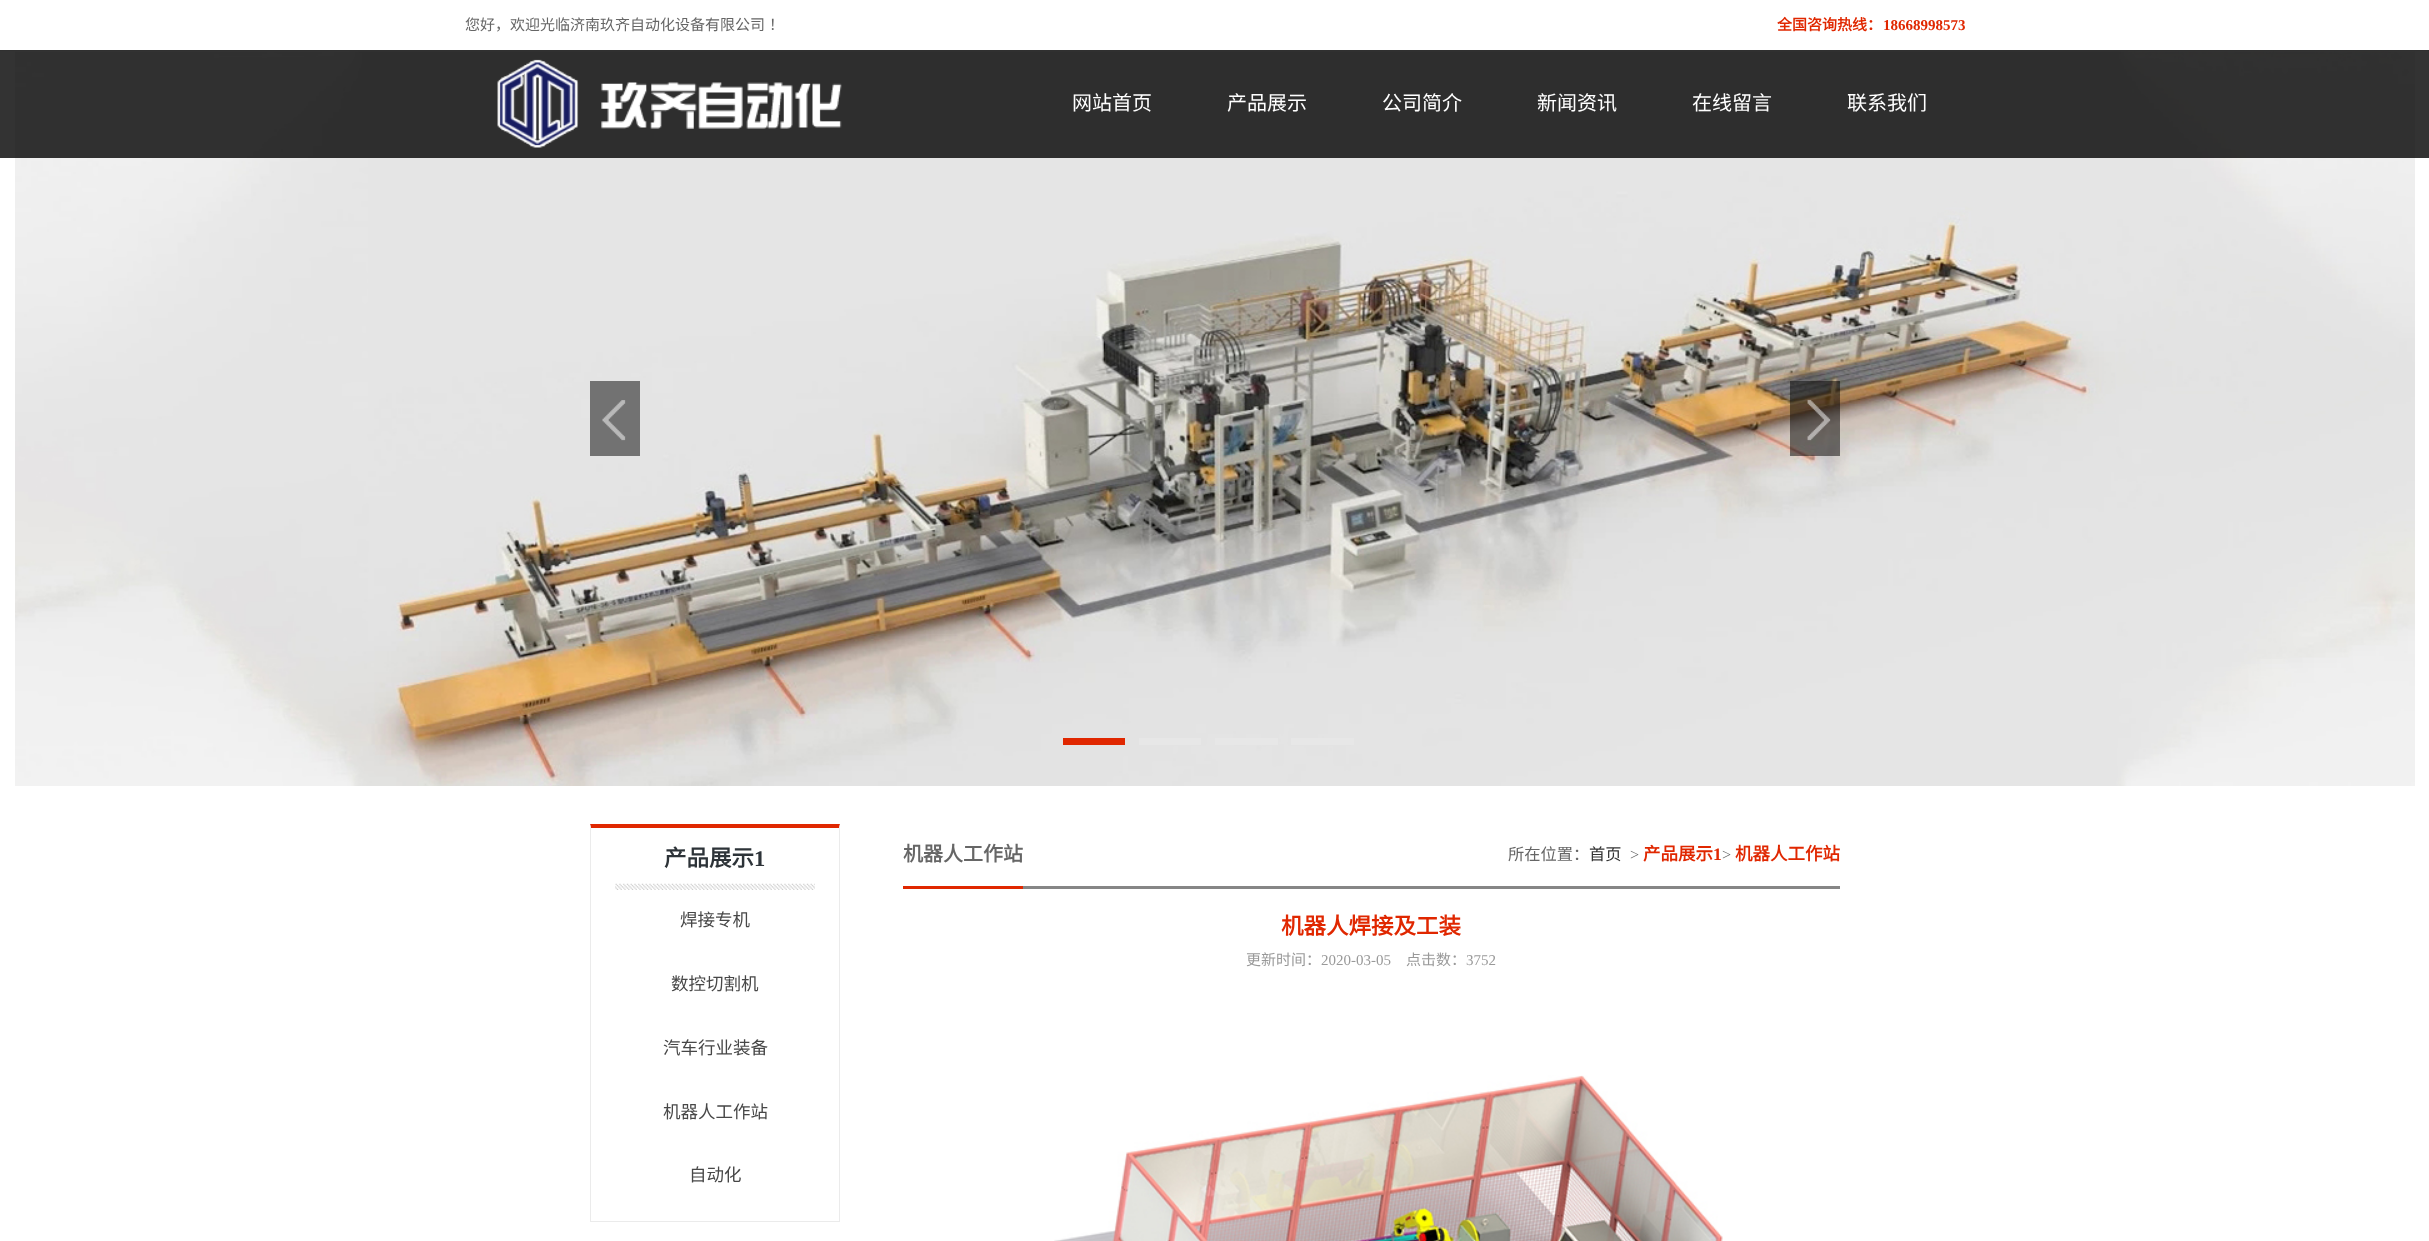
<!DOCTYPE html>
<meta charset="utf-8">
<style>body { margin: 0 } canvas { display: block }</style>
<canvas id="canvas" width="2429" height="1241"></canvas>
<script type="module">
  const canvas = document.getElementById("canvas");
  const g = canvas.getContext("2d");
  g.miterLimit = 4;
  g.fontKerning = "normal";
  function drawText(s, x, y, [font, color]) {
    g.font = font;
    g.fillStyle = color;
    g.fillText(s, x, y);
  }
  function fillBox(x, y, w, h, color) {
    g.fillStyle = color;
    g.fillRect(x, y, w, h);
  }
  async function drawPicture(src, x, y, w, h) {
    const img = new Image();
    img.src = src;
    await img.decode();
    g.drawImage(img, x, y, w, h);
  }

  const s1 = ["15px Noto Sans CJK SC", "#666666"];
  const s2 = ["bold 15px Noto Sans CJK SC", "#E02700"];
  const s3 = ["bold 15px Liberation Serif", "#E02700"];
  const s4 = ["20px Noto Sans CJK SC", "#FFFFFF"];
  const s5 = ["bold 22.5px Noto Sans CJK SC", "#2D3338"];
  const s6 = ["bold 22.5px Liberation Serif", "#2D3338"];
  const s7 = ["17.5px Noto Sans CJK SC", "#474747"];
  const s8 = ["bold 20px Noto Sans CJK SC", "#666666"];
  const s9 = ["16.25px Noto Sans CJK SC", "#666666"];
  const s10 = ["16.25px Noto Sans CJK SC", "#333333"];
  const s11 = ["16.25px Liberation Serif", "#666666"];
  const s12 = ["bold 17.5px Noto Sans CJK SC", "#E02700"];
  const s13 = ["bold 17.5px Liberation Serif", "#E02700"];
  const s14 = ["bold 22.5px Noto Sans CJK SC", "#E02700"];
  const s15 = ["15px Noto Sans CJK SC", "#999999"];
  const s16 = ["15px Liberation Serif", "#999999"];

  fillBox(0, 0, 2429, 1241, "#FFFFFF");
  fillBox(0, 50, 2429, 1, "#EFEFEF");
  drawText("您好，欢迎光临济南玖齐自动化设备有限公司", 465, 30, s1);
  drawText("！", 769, 30, s1);
  drawText("全国咨询热线：", 1777, 30, s2);
  drawText("18668998573", 1883, 30, s3);
  await drawPicture("pic1.png", 15, 51, 2400, 735);
  fillBox(590, 381, 50, 75, "#727272");
  await drawPicture("pic2.png", 602, 400, 24, 41);
  fillBox(1790, 381, 50, 75, "rgba(0, 0, 0, 0.5)");
  await drawPicture("pic3.png", 1807, 399, 24, 42);
  fillBox(1063, 738, 62, 7, "#E02700");
  fillBox(1139, 738, 62, 7, "#E7E7E7");
  fillBox(1215, 738, 63, 7, "#E7E7E7");
  fillBox(1291, 738, 63, 7, "#E7E7E7");
  fillBox(0, 50, 2429, 108, "rgba(0, 0, 0, 0.8)");
  await drawPicture("pic4.png", 497, 59, 345, 89);
  drawText("网站首页", 1072, 110, s4);
  drawText("产品展示", 1227, 110, s4);
  drawText("公司简介", 1382, 110, s4);
  drawText("新闻资讯", 1537, 110, s4);
  drawText("在线留言", 1692, 110, s4);
  drawText("联系我们", 1847, 110, s4);
  g.fillStyle = "#E02700";
  g.beginPath();
  g.moveTo(590, 824);
  g.lineTo(840, 824);
  g.lineTo(839, 828);
  g.lineTo(591, 828);
  g.closePath();
  g.fill();
  g.fillStyle = "#EBEBEB";
  g.beginPath();
  g.moveTo(840, 824);
  g.lineTo(840, 1222);
  g.lineTo(839, 1221);
  g.lineTo(839, 828);
  g.closePath();
  g.fill();
  fillBox(590, 1221, 250, 1, "#EBEBEB");
  g.beginPath();
  g.moveTo(590, 1222);
  g.lineTo(590, 824);
  g.lineTo(591, 828);
  g.lineTo(591, 1221);
  g.closePath();
  g.fill();
  await drawPicture("pic5.png", 615, 883, 200, 7);
  drawText("产品展示", 664, 866, s5);
  drawText("1", 754, 866, s6);
  drawText("焊接专机", 680, 926, s7);
  drawText("数控切割机", 671, 990, s7);
  drawText("汽车行业装备", 663, 1054, s7);
  drawText("机器人工作站", 663, 1118, s7);
  drawText("自动化", 689, 1181, s7);
  fillBox(1023, 886, 817, 3, "#868686");
  fillBox(903, 886, 120, 3, "#E02700");
  drawText("机器人工作站", 903, 861, s8);
  drawText("所在位置：", 1508, 860, s9);
  drawText("首页", 1589, 860, s10);
  drawText(">", 1630, 860, s11);
  drawText("产品展示", 1643, 860, s12);
  drawText("1", 1713, 860, s13);
  drawText(">", 1722, 860, s11);
  drawText("机器人工作站", 1735, 860, s12);
  drawText("机器人焊接及工装", 1281, 934, s14);
  drawText("更新时间：", 1246, 965, s15);
  drawText("2020-03-05", 1321, 965, s16);
  drawText("点击数：", 1406, 965, s15);
  drawText("3752", 1466, 965, s16);
  await drawPicture("pic6.png", 1054, 1075, 669, 166);
</script>
